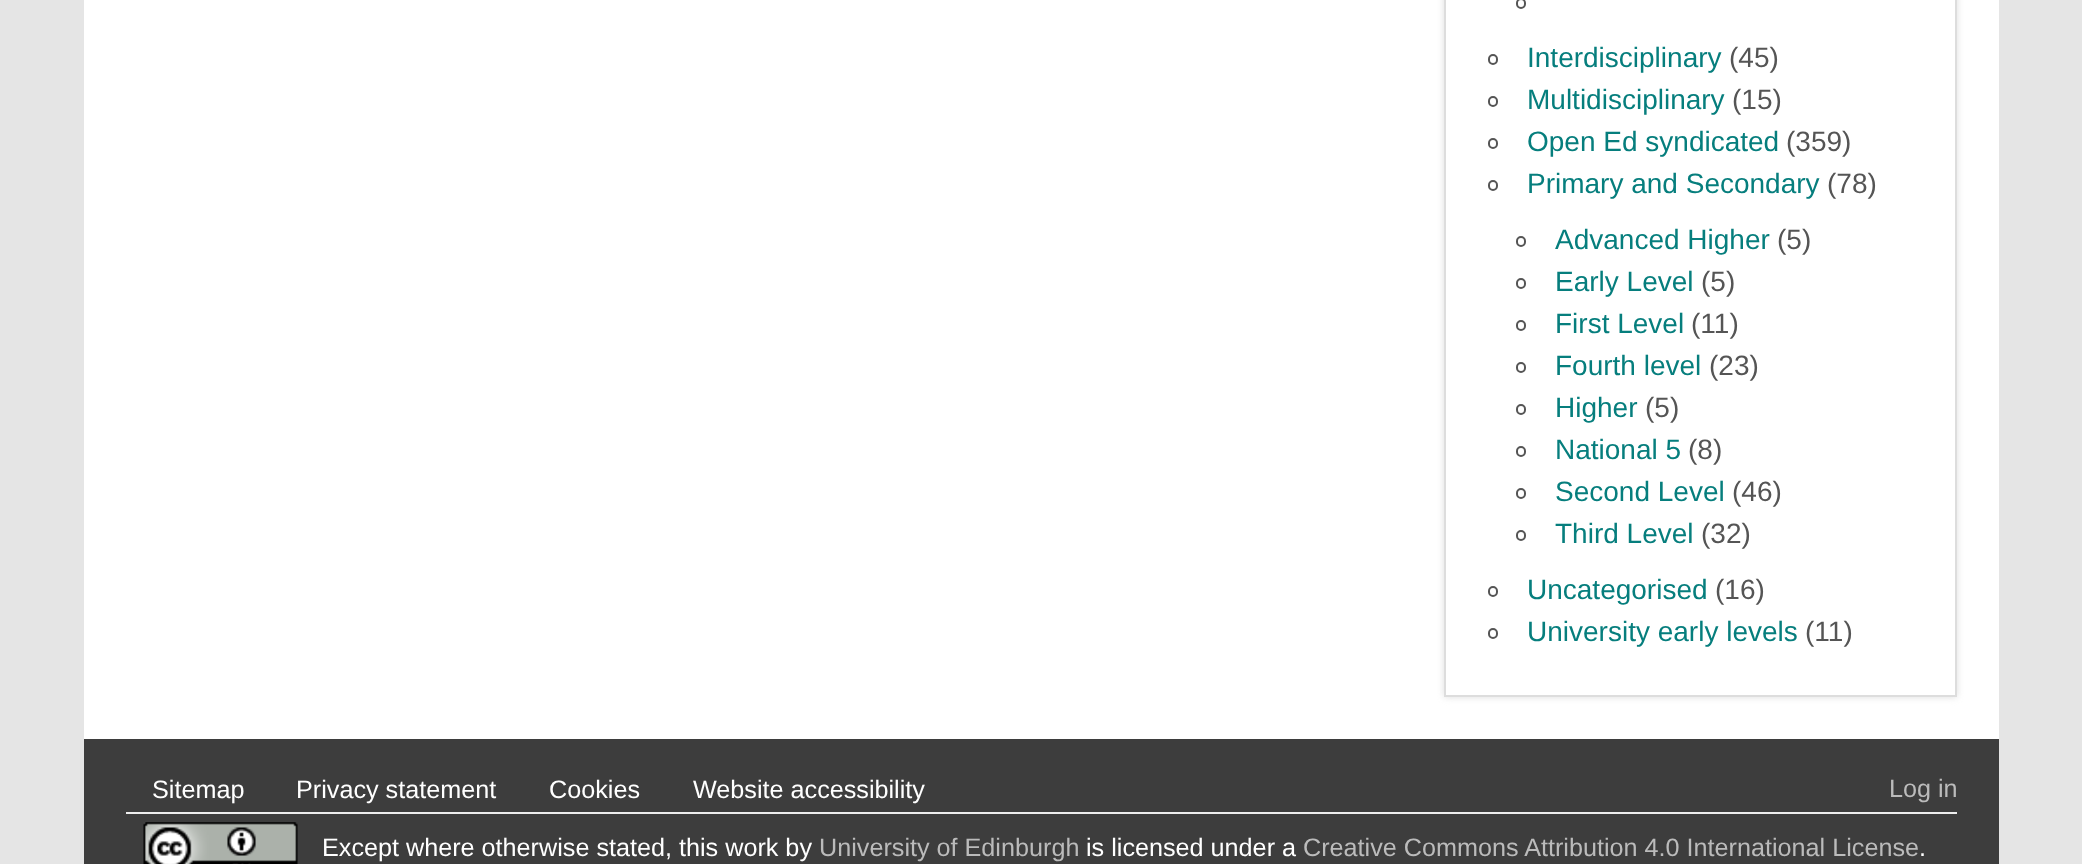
<!DOCTYPE html>
<meta charset="utf-8">
<style>body { margin: 0 } canvas { display: block }</style>
<canvas id="canvas" width="2082" height="864"></canvas>
<script type="module">
  const canvas = document.getElementById("canvas");
  const g = canvas.getContext("2d");
  g.miterLimit = 4;
  g.fontKerning = "normal";
  function drawText(s, x, y, [font, color]) {
    g.font = font;
    g.fillStyle = color;
    g.fillText(s, x, y);
  }
  function fillBox(x, y, w, h, color) {
    g.fillStyle = color;
    g.fillRect(x, y, w, h);
  }
  async function drawPicture(src, x, y, w, h) {
    const img = new Image();
    img.src = src;
    await img.decode();
    g.drawImage(img, x, y, w, h);
  }

  const s1 = ["28px Liberation Sans", "#067E7D"];
  const s2 = ["28px Liberation Sans", "#555555"];
  const s3 = ["25.2px Liberation Sans", "#FFFFFF"];
  const s4 = ["25.2px Liberation Sans", "#BBBBBB"];

  fillBox(0, 0, 2082, 864, "#E5E5E5");
  fillBox(84, 0, 1915, 739, "#FFFFFF");
  g.fillStyle = "#DDDDDD";
  g.filter = "blur(3.5px)";
  g.beginPath();
  g.rect(1444, -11, 513, 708);
  g.fill();
  g.filter = "none";
  g.fillStyle = "#FFFFFF";
  g.beginPath();
  g.rect(1445, -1, 511, 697);
  g.fill();
  g.strokeStyle = "#DDDDDD";
  g.lineWidth = 2;
  g.stroke();
  g.beginPath();
  g.roundRect(1517, -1, 8, 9, 4);
  g.strokeStyle = "#555555";
  g.stroke();
  g.beginPath();
  g.roundRect(1489, 55, 8, 9, 4);
  g.stroke();
  drawText("Interdisciplinary", 1527, 67, s1);
  drawText("(45)", 1729, 67, s2);
  g.beginPath();
  g.roundRect(1489, 97, 8, 9, 4);
  g.stroke();
  drawText("Multidisciplinary", 1527, 109, s1);
  drawText("(15)", 1732, 109, s2);
  g.beginPath();
  g.roundRect(1489, 139, 8, 9, 4);
  g.stroke();
  drawText("Open Ed syndicated", 1527, 151, s1);
  drawText("(359)", 1786, 151, s2);
  g.beginPath();
  g.roundRect(1489, 181, 8, 9, 4);
  g.stroke();
  drawText("Primary and Secondary", 1527, 193, s1);
  drawText("(78)", 1827, 193, s2);
  g.beginPath();
  g.roundRect(1517, 237, 8, 9, 4);
  g.stroke();
  drawText("Advanced Higher", 1555, 249, s1);
  drawText("(5)", 1777, 249, s2);
  g.beginPath();
  g.roundRect(1517, 279, 8, 9, 4);
  g.stroke();
  drawText("Early Level", 1555, 291, s1);
  drawText("(5)", 1701, 291, s2);
  g.beginPath();
  g.roundRect(1517, 321, 8, 9, 4);
  g.stroke();
  drawText("First Level", 1555, 333, s1);
  drawText("(11)", 1691, 333, s2);
  g.beginPath();
  g.roundRect(1517, 363, 8, 9, 4);
  g.stroke();
  drawText("Fourth level", 1555, 375, s1);
  drawText("(23)", 1709, 375, s2);
  g.beginPath();
  g.roundRect(1517, 405, 8, 9, 4);
  g.stroke();
  drawText("Higher", 1555, 417, s1);
  drawText("(5)", 1645, 417, s2);
  g.beginPath();
  g.roundRect(1517, 447, 8, 9, 4);
  g.stroke();
  drawText("National 5", 1555, 459, s1);
  drawText("(8)", 1688, 459, s2);
  g.beginPath();
  g.roundRect(1517, 489, 8, 9, 4);
  g.stroke();
  drawText("Second Level", 1555, 501, s1);
  drawText("(46)", 1732, 501, s2);
  g.beginPath();
  g.roundRect(1517, 531, 8, 9, 4);
  g.stroke();
  drawText("Third Level", 1555, 543, s1);
  drawText("(32)", 1701, 543, s2);
  g.beginPath();
  g.roundRect(1489, 587, 8, 9, 4);
  g.stroke();
  drawText("Uncategorised", 1527, 599, s1);
  drawText("(16)", 1715, 599, s2);
  g.beginPath();
  g.roundRect(1489, 629, 8, 9, 4);
  g.stroke();
  drawText("University early levels", 1527, 641, s1);
  drawText("(11)", 1805, 641, s2);
  fillBox(84, 739, 1915, 125, "#3D3D3D");
  drawText("Sitemap", 152, 798, s3);
  drawText("Privacy statement", 296, 798, s3);
  drawText("Cookies", 549, 798, s3);
  drawText("Website accessibility", 693, 798, s3);
  drawText("Log in", 1889, 797, s4);
  fillBox(126, 812, 1831, 2, "#EEEEEE");
  await drawPicture("pic1.png", 143, 822, 155, 42);
  drawText("Except where otherwise stated, this work by", 322, 856, s3);
  drawText("University of Edinburgh", 819, 856, s4);
  drawText("is licensed under a", 1086, 856, s3);
  drawText("Creative Commons Attribution 4.0 International License", 1303, 856, s4);
  drawText(".", 1919, 856, s3);
</script>
